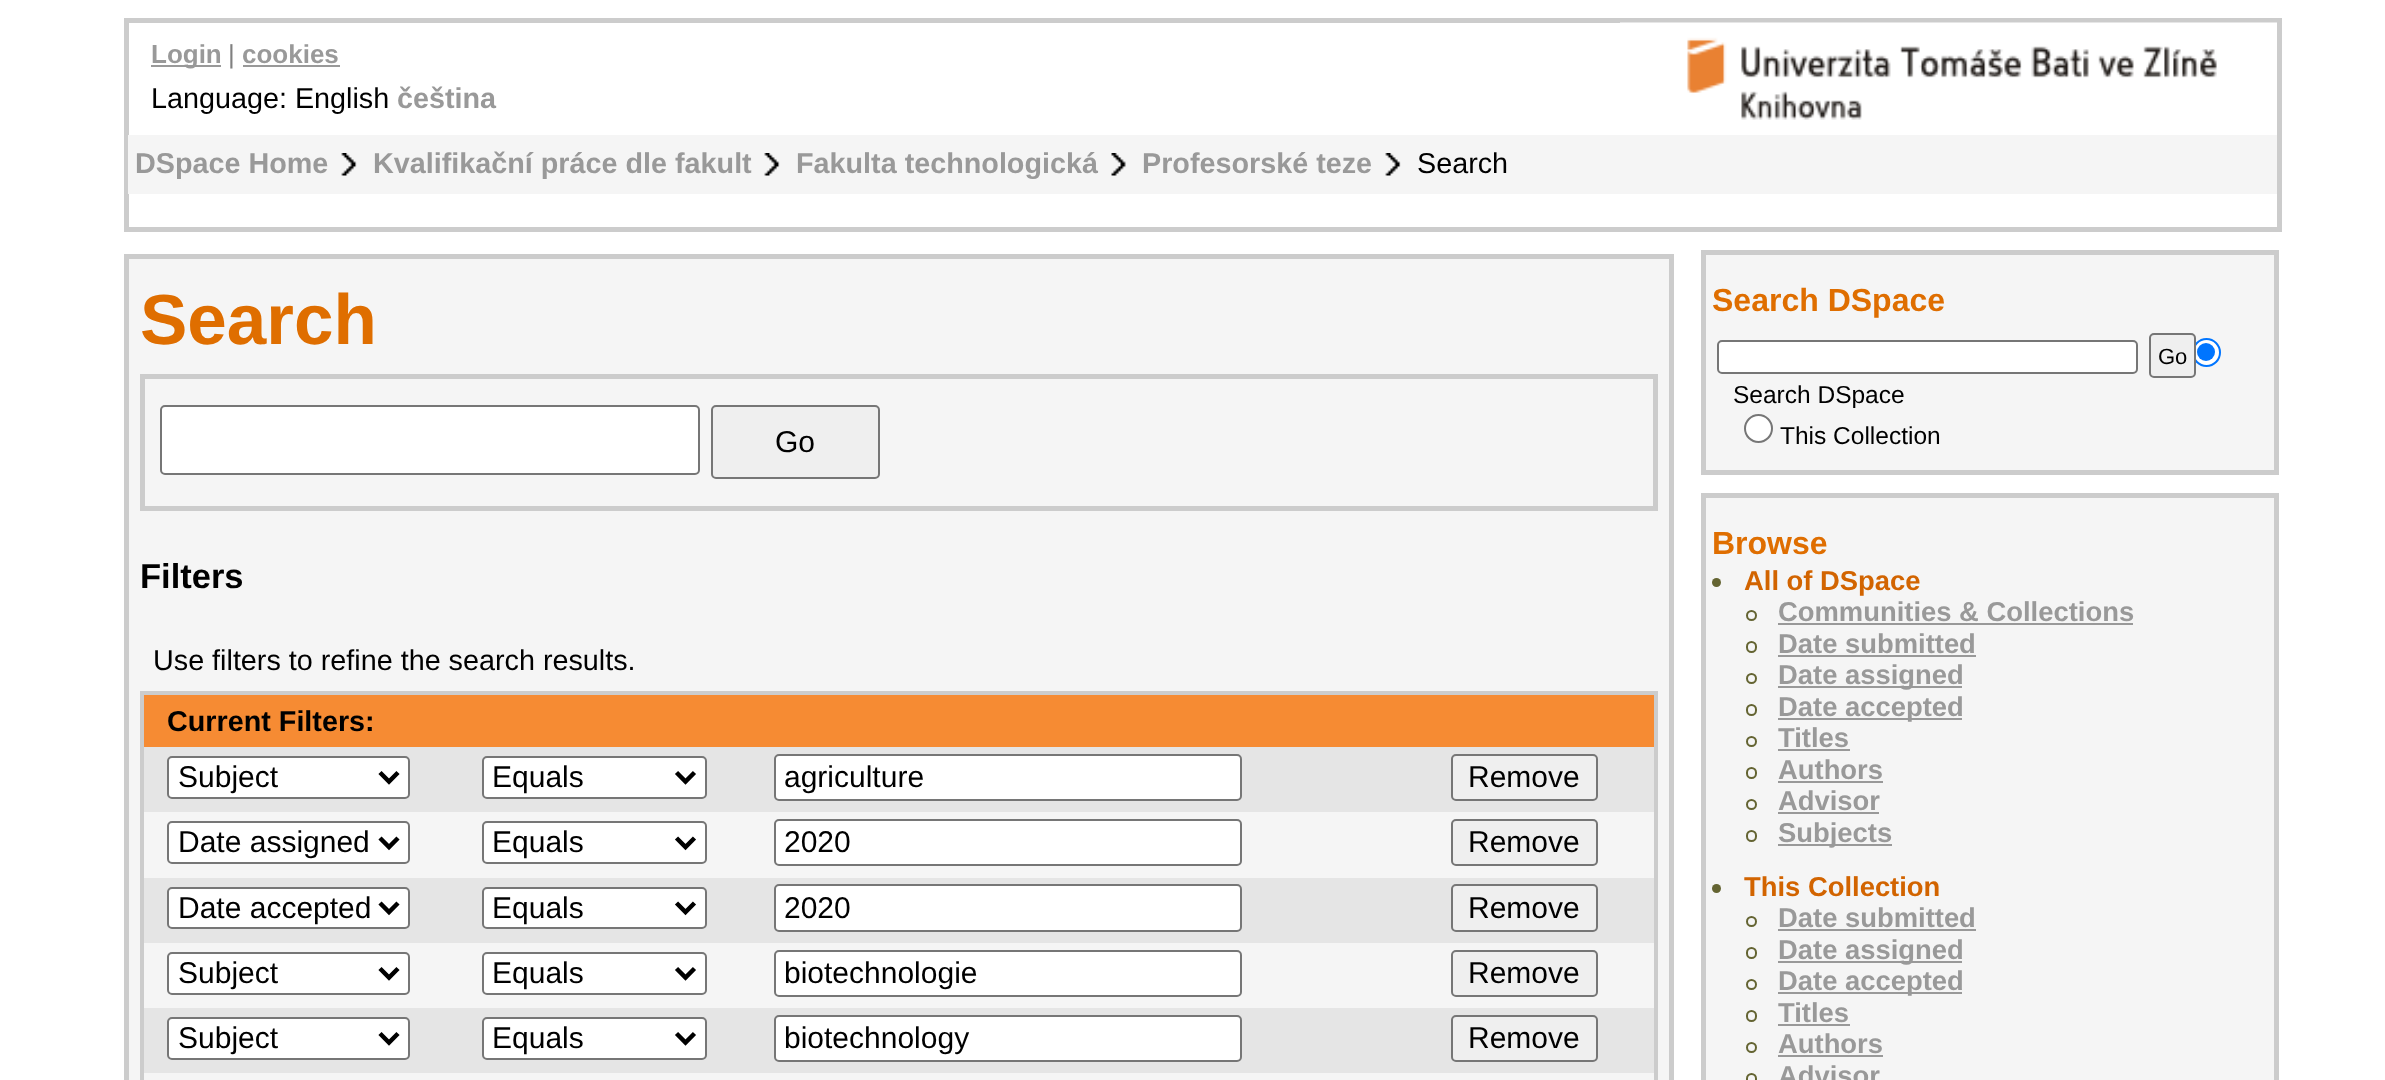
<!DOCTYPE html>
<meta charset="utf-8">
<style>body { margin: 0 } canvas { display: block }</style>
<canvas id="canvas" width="2385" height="1080"></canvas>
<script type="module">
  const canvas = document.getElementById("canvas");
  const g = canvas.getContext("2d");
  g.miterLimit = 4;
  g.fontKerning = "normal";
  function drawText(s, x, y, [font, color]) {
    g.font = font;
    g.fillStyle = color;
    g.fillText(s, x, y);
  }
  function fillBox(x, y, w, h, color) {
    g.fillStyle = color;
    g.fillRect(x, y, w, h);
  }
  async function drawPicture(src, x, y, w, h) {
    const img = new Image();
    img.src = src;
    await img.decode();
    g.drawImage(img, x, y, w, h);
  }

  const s1 = ["bold 26px Liberation Sans", "#999999"];
  const s2 = ["26px Liberation Sans", "#808080"];
  const s3 = ["28.75px Liberation Sans", "#000000"];
  const s4 = ["bold 28.75px Liberation Sans", "#999999"];
  const s5 = ["bold 71px Liberation Sans", "#DF6E00"];
  const s6 = ["30px Liberation Sans", "#000000"];
  const s7 = ["bold 34.5px Liberation Sans", "#000000"];
  const s8 = ["bold 28.75px Liberation Sans", "#000000"];
  const s9 = ["bold 32px Liberation Sans", "#DF6E00"];
  const s10 = ["22px Liberation Sans", "#000000"];
  const s11 = ["24.5px Liberation Sans", "#000000"];
  const s12 = ["bold 27.4px Liberation Sans", "#D26400"];
  const s13 = ["bold 27.4px Liberation Sans", "#999999"];

  fillBox(0, 0, 2385, 1080, "#FFFFFF");
  g.strokeStyle = "#CCCCCC";
  g.lineWidth = 5;
  g.strokeRect(126.5, 20.5, 2153, 209);
  fillBox(151, 65, 70, 2, "#999999");
  drawText("Login", 151, 63, s1);
  drawText("|", 228, 63, s2);
  drawText("cookies", 242, 63, s1);
  fillBox(243, 65, 97, 2, "#999999");
  await drawPicture("pic1.png", 1620, 22, 657, 98);
  drawText("Language: English", 151, 108, s3);
  drawText("čeština", 397, 108, s4);
  fillBox(128, 135, 2149, 59, "#F5F5F5");
  drawText("DSpace Home", 135, 173, s4);
  await drawPicture("pic2.png", 341, 153, 16, 23);
  drawText("Kvalifikační práce dle fakult", 373, 173, s4);
  await drawPicture("pic2.png", 764, 153, 16, 23);
  drawText("Fakulta technologická", 796, 173, s4);
  await drawPicture("pic3.png", 1111, 153, 15, 23);
  drawText("Profesorské teze", 1142, 173, s4);
  await drawPicture("pic4.png", 1385, 153, 16, 23);
  drawText("Search", 1417, 173, s3);
  g.fillStyle = "#F5F5F5";
  g.beginPath();
  g.rect(126.5, 256.5, 1545, 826);
  g.fill();
  g.stroke();
  drawText("Search", 140, 344, s5);
  g.strokeRect(142.5, 376.5, 1513, 132);
  g.fillStyle = "#FFFFFF";
  g.beginPath();
  g.roundRect(161, 406, 538, 68, 4);
  g.fill();
  g.strokeStyle = "#767676";
  g.lineWidth = 2;
  g.stroke();
  g.fillStyle = "#EFEFEF";
  g.beginPath();
  g.roundRect(712, 406, 167, 72, 4);
  g.fill();
  g.stroke();
  drawText("Go", 775, 452, s6);
  drawText("Filters", 140, 588, s7);
  drawText("Use filters to refine the search results.", 153, 670, s3);
  g.strokeStyle = "#CCCCCC";
  g.lineWidth = 5;
  g.strokeRect(142.5, 693.5, 1513, 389);
  fillBox(144, 695, 1510, 52, "#F68B33");
  drawText("Current Filters:", 167, 731, s8);
  fillBox(144, 747, 1510, 65, "#E5E5E5");
  g.fillStyle = "#FFFFFF";
  g.beginPath();
  g.roundRect(168, 757, 241, 41, 4);
  g.fill();
  g.strokeStyle = "#767676";
  g.lineWidth = 2;
  g.stroke();
  g.beginPath();
  g.moveTo(380, 772.5);
  g.lineTo(389, 781.5);
  g.lineTo(398, 772.5);
  g.strokeStyle = "#000000";
  g.lineWidth = 4.5;
  g.stroke();
  drawText("Subject", 178, 787, s6);
  g.fillStyle = "#FFFFFF";
  g.beginPath();
  g.roundRect(483, 757, 223, 41, 4);
  g.fill();
  g.strokeStyle = "#767676";
  g.lineWidth = 2;
  g.stroke();
  g.beginPath();
  g.moveTo(676.5, 772.5);
  g.lineTo(685.5, 781.5);
  g.lineTo(694.5, 772.5);
  g.strokeStyle = "#000000";
  g.lineWidth = 4.5;
  g.stroke();
  drawText("Equals", 492, 787, s6);
  g.fillStyle = "#FFFFFF";
  g.beginPath();
  g.roundRect(775, 755, 466, 45, 4);
  g.fill();
  g.strokeStyle = "#767676";
  g.lineWidth = 2;
  g.stroke();
  drawText("agriculture", 784, 787, s6);
  g.fillStyle = "#EFEFEF";
  g.beginPath();
  g.roundRect(1452, 755, 145, 45, 4);
  g.fill();
  g.stroke();
  drawText("Remove", 1468, 787, s6);
  fillBox(144, 812, 1510, 66, "#F5F5F5");
  g.fillStyle = "#FFFFFF";
  g.beginPath();
  g.roundRect(168, 822, 241, 41, 4);
  g.fill();
  g.stroke();
  g.beginPath();
  g.moveTo(380, 838);
  g.lineTo(389, 847);
  g.lineTo(398, 838);
  g.strokeStyle = "#000000";
  g.lineWidth = 4.5;
  g.stroke();
  drawText("Date assigned", 178, 852, s6);
  g.fillStyle = "#FFFFFF";
  g.beginPath();
  g.roundRect(483, 822, 223, 41, 4);
  g.fill();
  g.strokeStyle = "#767676";
  g.lineWidth = 2;
  g.stroke();
  g.beginPath();
  g.moveTo(676.5, 838);
  g.lineTo(685.5, 847);
  g.lineTo(694.5, 838);
  g.strokeStyle = "#000000";
  g.lineWidth = 4.5;
  g.stroke();
  drawText("Equals", 492, 852, s6);
  g.fillStyle = "#FFFFFF";
  g.beginPath();
  g.roundRect(775, 820, 466, 45, 4);
  g.fill();
  g.strokeStyle = "#767676";
  g.lineWidth = 2;
  g.stroke();
  drawText("2020", 784, 852, s6);
  g.fillStyle = "#EFEFEF";
  g.beginPath();
  g.roundRect(1452, 820, 145, 45, 4);
  g.fill();
  g.stroke();
  drawText("Remove", 1468, 852, s6);
  fillBox(144, 878, 1510, 65, "#E5E5E5");
  g.fillStyle = "#FFFFFF";
  g.beginPath();
  g.roundRect(168, 888, 241, 40, 4);
  g.fill();
  g.stroke();
  g.beginPath();
  g.moveTo(380, 903);
  g.lineTo(389, 912);
  g.lineTo(398, 903);
  g.strokeStyle = "#000000";
  g.lineWidth = 4.5;
  g.stroke();
  drawText("Date accepted", 178, 918, s6);
  g.fillStyle = "#FFFFFF";
  g.beginPath();
  g.roundRect(483, 888, 223, 40, 4);
  g.fill();
  g.strokeStyle = "#767676";
  g.lineWidth = 2;
  g.stroke();
  g.beginPath();
  g.moveTo(676.5, 903);
  g.lineTo(685.5, 912);
  g.lineTo(694.5, 903);
  g.strokeStyle = "#000000";
  g.lineWidth = 4.5;
  g.stroke();
  drawText("Equals", 492, 918, s6);
  g.fillStyle = "#FFFFFF";
  g.beginPath();
  g.roundRect(775, 885, 466, 46, 4);
  g.fill();
  g.strokeStyle = "#767676";
  g.lineWidth = 2;
  g.stroke();
  drawText("2020", 784, 918, s6);
  g.fillStyle = "#EFEFEF";
  g.beginPath();
  g.roundRect(1452, 885, 145, 46, 4);
  g.fill();
  g.stroke();
  drawText("Remove", 1468, 918, s6);
  fillBox(144, 943, 1510, 65, "#F5F5F5");
  g.fillStyle = "#FFFFFF";
  g.beginPath();
  g.roundRect(168, 953, 241, 41, 4);
  g.fill();
  g.stroke();
  g.beginPath();
  g.moveTo(380, 968.5);
  g.lineTo(389, 977.5);
  g.lineTo(398, 968.5);
  g.strokeStyle = "#000000";
  g.lineWidth = 4.5;
  g.stroke();
  drawText("Subject", 178, 983, s6);
  g.fillStyle = "#FFFFFF";
  g.beginPath();
  g.roundRect(483, 953, 223, 41, 4);
  g.fill();
  g.strokeStyle = "#767676";
  g.lineWidth = 2;
  g.stroke();
  g.beginPath();
  g.moveTo(676.5, 968.5);
  g.lineTo(685.5, 977.5);
  g.lineTo(694.5, 968.5);
  g.strokeStyle = "#000000";
  g.lineWidth = 4.5;
  g.stroke();
  drawText("Equals", 492, 983, s6);
  g.fillStyle = "#FFFFFF";
  g.beginPath();
  g.roundRect(775, 951, 466, 45, 4);
  g.fill();
  g.strokeStyle = "#767676";
  g.lineWidth = 2;
  g.stroke();
  drawText("biotechnologie", 784, 983, s6);
  g.fillStyle = "#EFEFEF";
  g.beginPath();
  g.roundRect(1452, 951, 145, 45, 4);
  g.fill();
  g.stroke();
  drawText("Remove", 1468, 983, s6);
  fillBox(144, 1008, 1510, 65, "#E5E5E5");
  g.fillStyle = "#FFFFFF";
  g.beginPath();
  g.roundRect(168, 1018, 241, 41, 4);
  g.fill();
  g.stroke();
  g.beginPath();
  g.moveTo(380, 1033.5);
  g.lineTo(389, 1042.5);
  g.lineTo(398, 1033.5);
  g.strokeStyle = "#000000";
  g.lineWidth = 4.5;
  g.stroke();
  drawText("Subject", 178, 1048, s6);
  g.fillStyle = "#FFFFFF";
  g.beginPath();
  g.roundRect(483, 1018, 223, 41, 4);
  g.fill();
  g.strokeStyle = "#767676";
  g.lineWidth = 2;
  g.stroke();
  g.beginPath();
  g.moveTo(676.5, 1033.5);
  g.lineTo(685.5, 1042.5);
  g.lineTo(694.5, 1033.5);
  g.strokeStyle = "#000000";
  g.lineWidth = 4.5;
  g.stroke();
  drawText("Equals", 492, 1048, s6);
  g.fillStyle = "#FFFFFF";
  g.beginPath();
  g.roundRect(775, 1016, 466, 45, 4);
  g.fill();
  g.strokeStyle = "#767676";
  g.lineWidth = 2;
  g.stroke();
  drawText("biotechnology", 784, 1048, s6);
  g.fillStyle = "#EFEFEF";
  g.beginPath();
  g.roundRect(1452, 1016, 145, 45, 4);
  g.fill();
  g.stroke();
  drawText("Remove", 1468, 1048, s6);
  fillBox(144, 1073, 1510, 7, "#F5F5F5");
  g.beginPath();
  g.rect(1703.5, 252.5, 573, 220);
  g.fill();
  g.strokeStyle = "#CCCCCC";
  g.lineWidth = 5;
  g.stroke();
  drawText("Search DSpace", 1712, 311, s9);
  g.fillStyle = "#FFFFFF";
  g.beginPath();
  g.roundRect(1718, 341, 419, 32, 4);
  g.fill();
  g.strokeStyle = "#767676";
  g.lineWidth = 2;
  g.stroke();
  g.beginPath();
  g.arc(2206.5, 352.5, 13.5, 0, Math.PI * 2);
  g.fill();
  g.strokeStyle = "#0075FF";
  g.stroke();
  g.fillStyle = "#EFEFEF";
  g.beginPath();
  g.roundRect(2150, 334, 45, 43, 4);
  g.fill();
  g.strokeStyle = "#767676";
  g.stroke();
  drawText("Go", 2158, 364, s10);
  g.fillStyle = "#0075FF";
  g.beginPath();
  g.arc(2206, 352, 9, 0, Math.PI * 2);
  g.fill();
  drawText("Search DSpace", 1733, 403, s11);
  g.fillStyle = "#FFFFFF";
  g.beginPath();
  g.arc(1758.5, 428.5, 13.5, 0, Math.PI * 2);
  g.fill();
  g.stroke();
  drawText("This Collection", 1780, 444, s11);
  g.fillStyle = "#F5F5F5";
  g.beginPath();
  g.rect(1703.5, 495.5, 573, 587);
  g.fill();
  g.strokeStyle = "#CCCCCC";
  g.lineWidth = 5;
  g.stroke();
  drawText("Browse", 1712, 554, s9);
  g.fillStyle = "#646432";
  g.beginPath();
  g.arc(1716.5, 582.5, 4.5, 0, Math.PI * 2);
  g.fill();
  drawText("All of DSpace", 1744, 590, s12);
  g.beginPath();
  g.arc(1751.5, 615.5, 4.5, 0, Math.PI * 2);
  g.strokeStyle = "#646432";
  g.lineWidth = 2;
  g.stroke();
  drawText("Communities & Collections", 1778, 621, s13);
  fillBox(1778, 623, 355, 2, "#999999");
  g.beginPath();
  g.roundRect(1747, 642, 9, 10, 4.5);
  g.stroke();
  drawText("Date submitted", 1778, 653, s13);
  fillBox(1778, 655, 198, 2, "#999999");
  g.beginPath();
  g.arc(1751.5, 678.5, 4.5, 0, Math.PI * 2);
  g.stroke();
  fillBox(1778, 686, 184, 2, "#999999");
  drawText("Date assigned", 1778, 684, s13);
  g.beginPath();
  g.roundRect(1747, 705, 9, 10, 4.5);
  g.stroke();
  fillBox(1778, 718, 184, 2, "#999999");
  drawText("Date accepted", 1778, 716, s13);
  g.beginPath();
  g.arc(1751.5, 741.5, 4.5, 0, Math.PI * 2);
  g.stroke();
  drawText("Titles", 1778, 747, s13);
  fillBox(1778, 749, 72, 2, "#999999");
  g.beginPath();
  g.roundRect(1747, 768, 9, 10, 4.5);
  g.stroke();
  drawText("Authors", 1778, 779, s13);
  fillBox(1778, 781, 105, 2, "#999999");
  g.beginPath();
  g.arc(1751.5, 804.5, 4.5, 0, Math.PI * 2);
  g.stroke();
  drawText("Advisor", 1778, 810, s13);
  fillBox(1778, 812, 101, 2, "#999999");
  g.beginPath();
  g.roundRect(1747, 831, 9, 10, 4.5);
  g.stroke();
  fillBox(1778, 844, 114, 2, "#999999");
  drawText("Subjects", 1778, 842, s13);
  g.fillStyle = "#646432";
  g.beginPath();
  g.arc(1716.5, 888.5, 4.5, 0, Math.PI * 2);
  g.fill();
  drawText("This Collection", 1744, 896, s12);
  g.beginPath();
  g.arc(1751.5, 921.5, 4.5, 0, Math.PI * 2);
  g.stroke();
  drawText("Date submitted", 1778, 927, s13);
  fillBox(1778, 929, 198, 2, "#999999");
  g.beginPath();
  g.roundRect(1747, 948, 9, 10, 4.5);
  g.stroke();
  fillBox(1778, 961, 184, 2, "#999999");
  drawText("Date assigned", 1778, 959, s13);
  g.beginPath();
  g.arc(1751.5, 984.5, 4.5, 0, Math.PI * 2);
  g.stroke();
  fillBox(1778, 992, 184, 2, "#999999");
  drawText("Date accepted", 1778, 990, s13);
  g.beginPath();
  g.roundRect(1747, 1011, 9, 10, 4.5);
  g.stroke();
  drawText("Titles", 1778, 1022, s13);
  fillBox(1778, 1024, 72, 2, "#999999");
  g.beginPath();
  g.arc(1751.5, 1047.5, 4.5, 0, Math.PI * 2);
  g.stroke();
  drawText("Authors", 1778, 1053, s13);
  fillBox(1778, 1055, 105, 2, "#999999");
  g.beginPath();
  g.roundRect(1747, 1074, 9, 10, 4.5);
  g.stroke();
  drawText("Advisor", 1778, 1085, s13);
</script>
